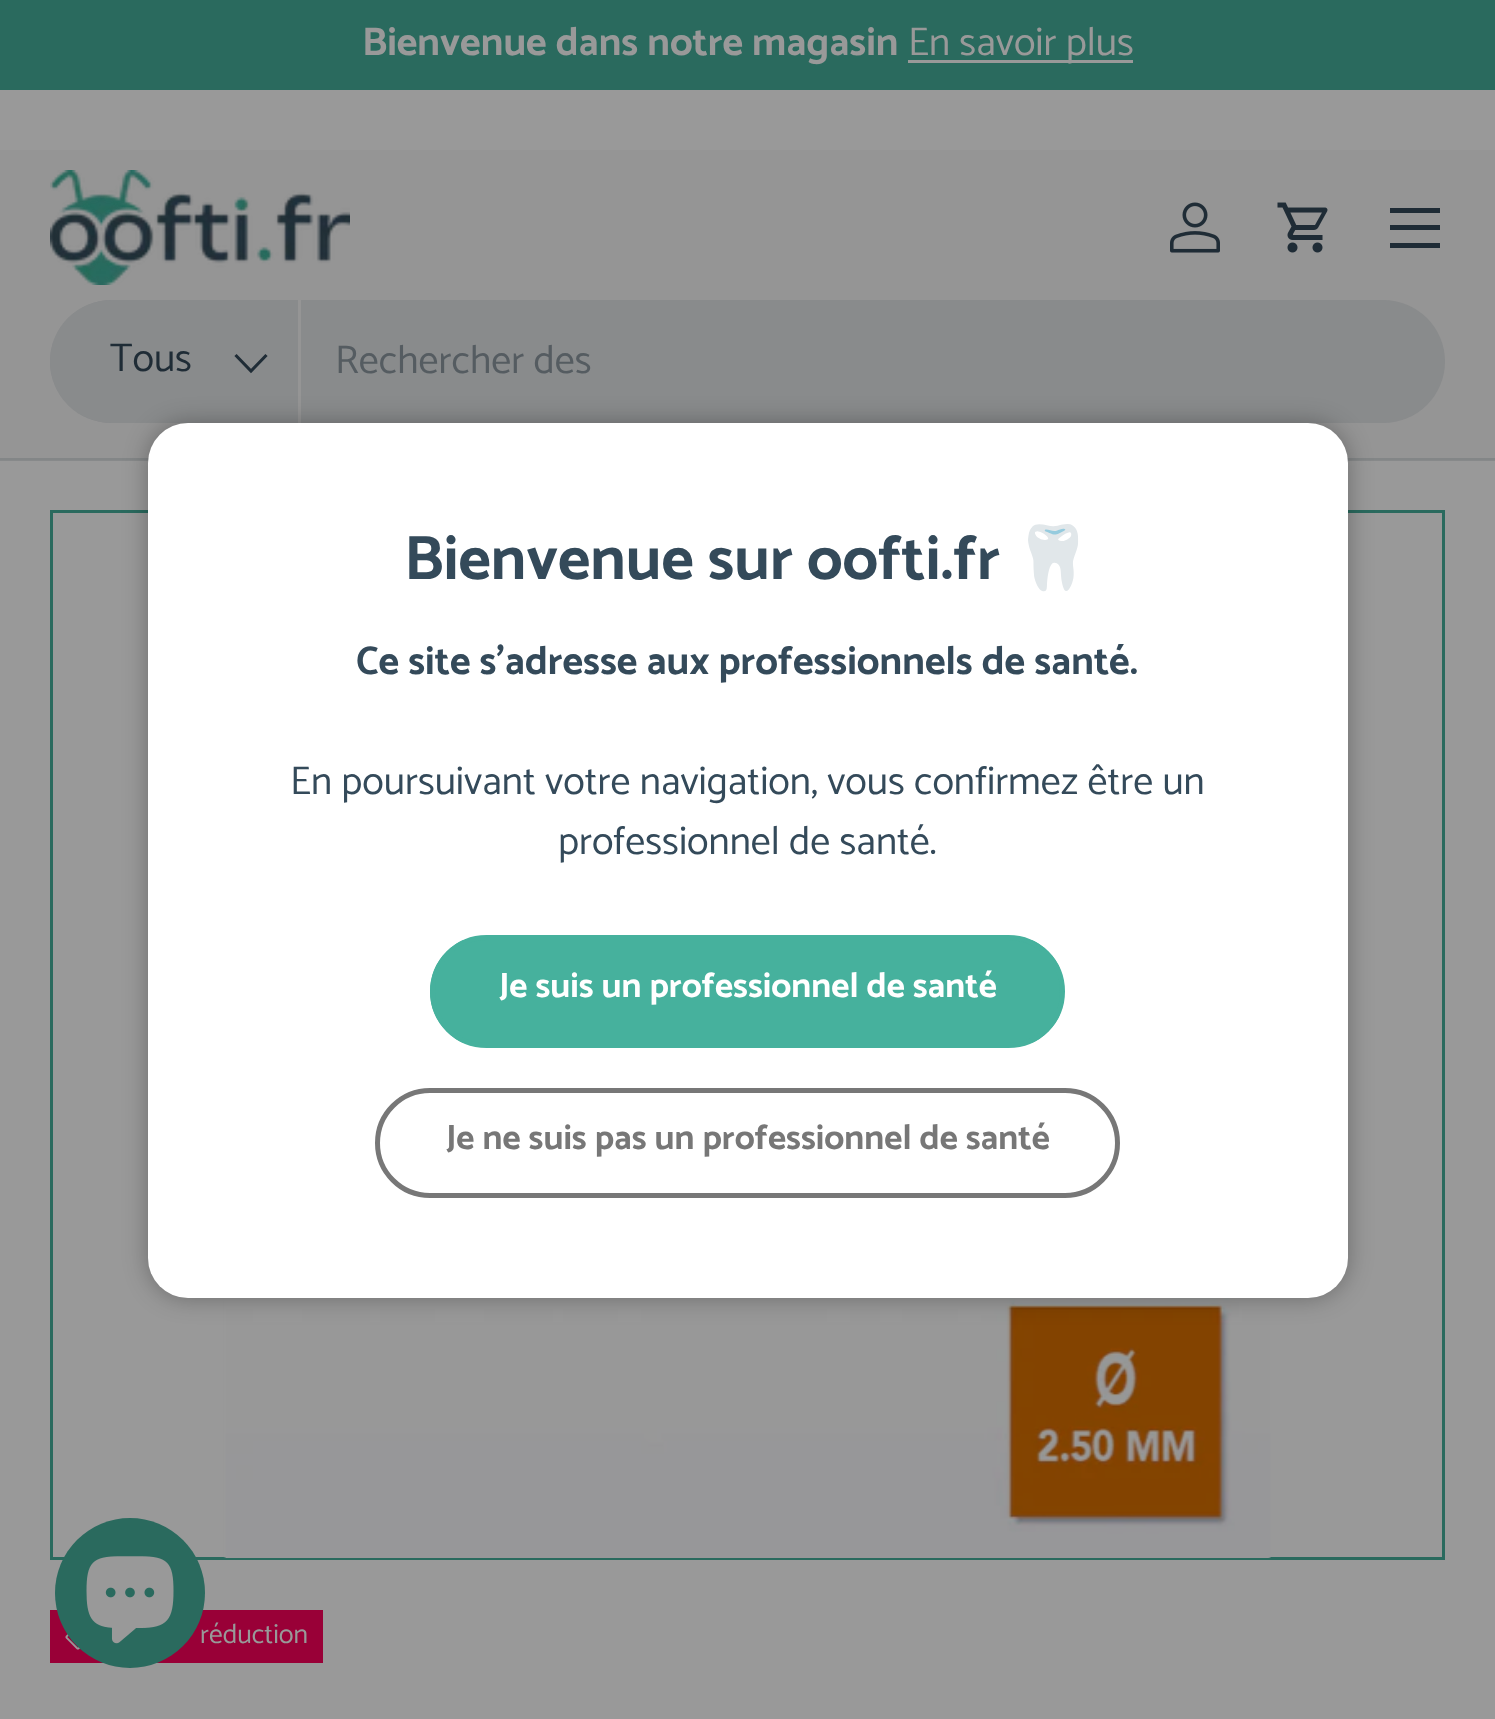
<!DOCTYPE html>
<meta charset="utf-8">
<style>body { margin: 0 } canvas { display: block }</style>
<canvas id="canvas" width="1495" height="1719"></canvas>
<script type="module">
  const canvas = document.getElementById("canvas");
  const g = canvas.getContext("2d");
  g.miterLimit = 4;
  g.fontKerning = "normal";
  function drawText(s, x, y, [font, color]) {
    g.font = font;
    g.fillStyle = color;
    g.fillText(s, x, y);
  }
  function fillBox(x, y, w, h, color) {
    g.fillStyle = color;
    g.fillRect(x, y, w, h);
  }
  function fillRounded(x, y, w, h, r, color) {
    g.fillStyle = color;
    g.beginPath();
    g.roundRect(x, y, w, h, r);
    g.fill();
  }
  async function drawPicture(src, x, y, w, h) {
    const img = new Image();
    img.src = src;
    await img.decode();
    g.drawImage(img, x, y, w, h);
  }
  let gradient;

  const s1 = ["bold 40px Catamaran", "#999999"];
  const s2 = ["40px Catamaran", "#999999"];
  const s3 = ["40px Catamaran", "#1F2C36"];
  const s4 = ["40px Catamaran", "#555C61"];
  const s5 = ["bold 62.75px Catamaran", "#344A5A"];
  const s6 = ["bold 62.75px Noto Color Emoji", "#344A5A"];
  const s7 = ["bold 40px Catamaran", "#344A5A"];
  const s8 = ["40px Catamaran", "#344A5A"];
  const s9 = ["bold 35.25px Catamaran", "#FFFFFF"];
  const s10 = ["bold 35.25px Catamaran", "#777777"];
  const s11 = ["27.5px Catamaran", "#999999"];

  fillBox(0, 0, 1495, 1719, "#999999");
  fillBox(0, 460, 1495, 1, "#87898A");
  fillBox(0, 0, 1495, 90, "#2A6A5E");
  drawText("Bienvenue dans notre magasin", 362, 55, s1);
  fillBox(908, 60, 225, 3, "#999999");
  drawText("En savoir plus", 908, 55, s2);
  fillBox(0, 150, 1495, 308, "#959595");
  fillBox(0, 458, 1495, 2, "#838687");
  await drawPicture("pic1.png", 50, 170, 300, 115);
  await drawPicture("pic2.png", 1170, 202, 50, 51);
  await drawPicture("pic3.png", 1277, 202, 51, 51);
  fillBox(1390, 208, 50, 5, "#1F2C36");
  fillBox(1390, 243, 50, 5, "#1F2C36");
  fillBox(1390, 225, 50, 5, "#1F2C36");
  fillRounded(50, 300, 1395, 123, 61.5, "#898B8C");
  g.beginPath();
  g.roundRect(50, 300, 250, 123, [61.5, 0, 0, 61.5]);
  g.fill();
  fillBox(298, 300, 3, 123, "#959595");
  drawText("Tous", 110, 371, s3);
  g.beginPath();
  g.moveTo(266.5, 355);
  g.lineTo(251, 371);
  g.lineTo(235.5, 355);
  g.strokeStyle = "#1F2C36";
  g.lineWidth = 3.1;
  g.stroke();
  drawText("Rechercher des", 335, 373, s4);
  g.strokeStyle = "#2A6A5E";
  g.lineWidth = 3;
  g.strokeRect(51.5, 511.5, 1392, 1047);
  await drawPicture("pic5.png", 223, 1298, 1048, 260);
  g.fillStyle = "rgba(0, 0, 0, 0.3)";
  g.filter = "blur(12.5px)";
  g.beginPath();
  g.roundRect(148, 423, 1200, 875, 40);
  g.fill();
  g.filter = "none";
  fillRounded(148, 423, 1200, 875, 40, "#FFFFFF");
  drawText("Bienvenue sur oofti.fr", 404, 579, s5);
  drawText("🦷", 1014, 579, s6);
  drawText("Ce site s'adresse aux professionnels de santé.", 356, 674, s7);
  drawText("En poursuivant votre navigation, vous confirmez être un", 290, 794, s8);
  drawText("professionnel de santé.", 558, 854, s8);
  g.save();
  g.beginPath();
  g.roundRect(430, 935, 635, 113, 56.5);
  g.clip();
  gradient = g.createLinearGradient(-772, 768, 1017, 1214);
  gradient.addColorStop(0.6, "#6DC2B2");
  gradient.addColorStop(0.6, "#46B19D");
  gradient.addColorStop(1, "#46B19D");
  g.fillStyle = gradient;
  g.fillRect(430, 940, 630, 103);
  g.restore();
  g.beginPath();
  g.roundRect(432.5, 937.5, 630, 108, 54);
  g.strokeStyle = "#46B19D";
  g.lineWidth = 5;
  g.stroke();
  drawText("Je suis un professionnel de santé", 499, 997, s9);
  g.beginPath();
  g.roundRect(377.5, 1090.5, 740, 105, 52.5);
  g.strokeStyle = "#777777";
  g.stroke();
  drawText("Je ne suis pas un professionnel de santé", 446, 1149, s10);
  fillBox(50, 1610, 273, 53, "#990037");
  await drawPicture("pic6.png", 65, 1633, 16, 17);
  drawText("réduction", 200, 1643, s11);
  g.fillStyle = "#2A6A5E";
  g.beginPath();
  g.arc(130, 1593, 75, 0, Math.PI * 2);
  g.fill();
  await drawPicture("pic4.png", 86, 1556, 88, 88);
</script>
